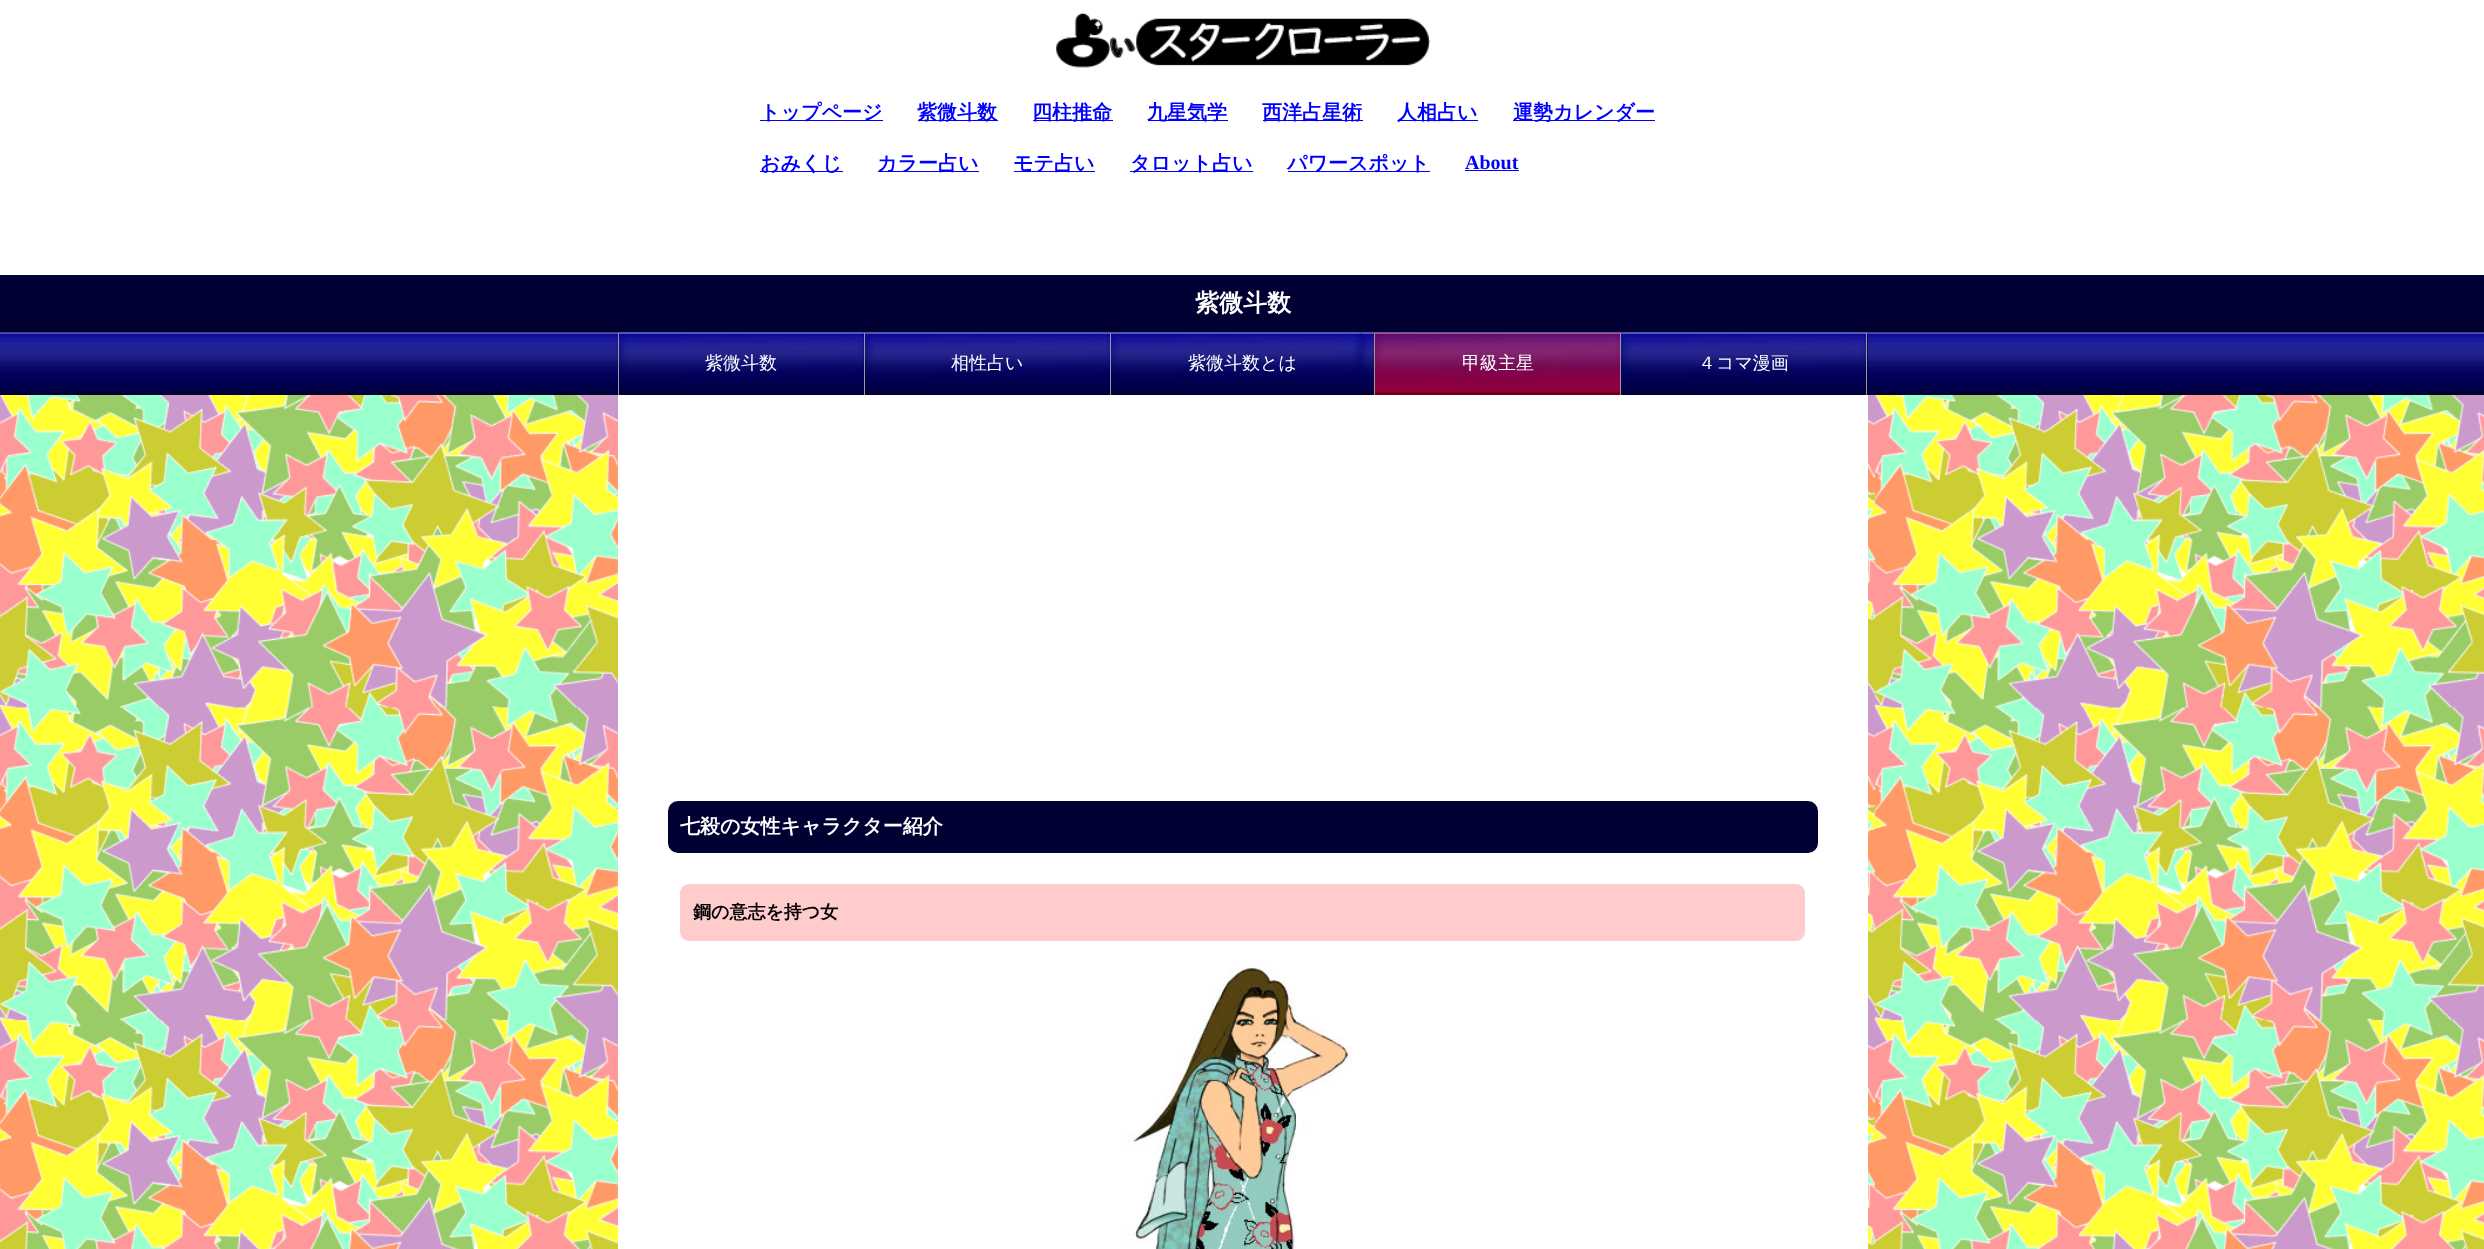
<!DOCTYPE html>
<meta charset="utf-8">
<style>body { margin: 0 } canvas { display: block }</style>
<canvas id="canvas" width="2484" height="1249"></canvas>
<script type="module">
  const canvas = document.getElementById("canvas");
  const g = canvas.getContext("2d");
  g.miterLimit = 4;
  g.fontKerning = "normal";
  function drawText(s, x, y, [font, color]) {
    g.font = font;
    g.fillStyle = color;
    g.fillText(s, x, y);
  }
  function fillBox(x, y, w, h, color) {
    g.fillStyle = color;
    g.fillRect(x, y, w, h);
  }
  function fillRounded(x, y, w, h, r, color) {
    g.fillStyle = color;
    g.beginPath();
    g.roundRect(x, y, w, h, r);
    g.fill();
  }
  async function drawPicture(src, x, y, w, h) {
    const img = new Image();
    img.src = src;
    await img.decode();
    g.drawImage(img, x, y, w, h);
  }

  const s1 = ["bold 20px WenQuanYi Zen Hei", "#0000FF"];
  const s2 = ["bold 20px Liberation Serif", "#0000FF"];
  const s3 = ["bold 24px WenQuanYi Zen Hei", "#FFFFFF"];
  const s4 = ["500 18px WenQuanYi Zen Hei", "#FFFFFF"];
  const s5 = ["bold 20px WenQuanYi Zen Hei", "#FFFFFF"];
  const s6 = ["bold 18px WenQuanYi Zen Hei", "#000000"];

  fillBox(0, 0, 2484, 1249, "#FFFFFF");
  await drawPicture("pic1.png", 1056, 13, 374, 55);
  fillBox(760, 120, 123, 1, "#0000FF");
  drawText("トップページ", 760, 119, s1);
  fillBox(918, 120, 80, 1, "#0000FF");
  drawText("紫微斗数", 917, 119, s1);
  fillBox(1033, 120, 80, 1, "#0000FF");
  drawText("四柱推命", 1032, 119, s1);
  fillBox(1148, 120, 80, 1, "#0000FF");
  drawText("九星気学", 1147, 119, s1);
  fillBox(1263, 120, 100, 1, "#0000FF");
  drawText("西洋占星術", 1262, 119, s1);
  fillBox(1398, 120, 80, 1, "#0000FF");
  drawText("人相占い", 1397, 119, s1);
  fillBox(1513, 120, 142, 1, "#0000FF");
  drawText("運勢カレンダー", 1513, 119, s1);
  fillBox(760, 171, 83, 1, "#0000FF");
  drawText("おみくじ", 760, 170, s1);
  fillBox(878, 171, 101, 1, "#0000FF");
  drawText("カラー占い", 877, 170, s1);
  fillBox(1014, 171, 81, 1, "#0000FF");
  drawText("モテ占い", 1013, 170, s1);
  fillBox(1130, 171, 123, 1, "#0000FF");
  drawText("タロット占い", 1130, 170, s1);
  fillBox(1288, 171, 142, 1, "#0000FF");
  drawText("パワースポット", 1287, 170, s1);
  drawText("About", 1465, 169, s2);
  fillBox(1465, 170, 54, 1, "#0000FF");
  fillBox(0, 275, 2484, 58, "#000033");
  drawText("紫微斗数", 1195, 311, s3);
  fillBox(0, 393, 2484, 2, "#000033");
  await drawPicture("pic2.png", 0, 332, 2484, 61);
  fillBox(619, 333, 245, 60, "#000033");
  await drawPicture("pic3.png", 617, 332, 247, 61);
  fillBox(618, 333, 1, 62, "#999999");
  drawText("紫微斗数", 705, 369, s4);
  await drawPicture("pic4.png", 863, 332, 247, 61);
  fillBox(864, 333, 1, 62, "#999999");
  drawText("相性占い", 951, 369, s4);
  fillBox(1111, 333, 263, 60, "#000033");
  await drawPicture("pic5.png", 1110, 332, 264, 61);
  fillBox(1110, 333, 1, 62, "#999999");
  drawText("紫微斗数とは", 1188, 369, s4);
  await drawPicture("pic6.png", 1373, 332, 247, 63);
  fillBox(1374, 333, 1, 62, "#999999");
  drawText("甲級主星", 1462, 369, s4);
  fillBox(1621, 333, 247, 60, "#000033");
  await drawPicture("pic7.png", 1620, 332, 248, 61);
  fillBox(1866, 333, 1, 62, "#999999");
  fillBox(1620, 333, 1, 62, "#999999");
  drawText("４コマ漫画", 1698, 369, s4);
  await drawPicture("pic8.png", 0, 395, 2484, 854);
  fillBox(618, 395, 1250, 854, "#FFFFFF");
  fillRounded(668, 801, 1150, 52, 10, "#000033");
  drawText("七殺の女性キャラクター紹介", 680, 833, s5);
  fillRounded(680, 884, 1125, 57, 9, "#FFCCCC");
  drawText("鋼の意志を持つ女", 693, 918, s6);
  await drawPicture("pic9.png", 1127, 961, 225, 288);
</script>
